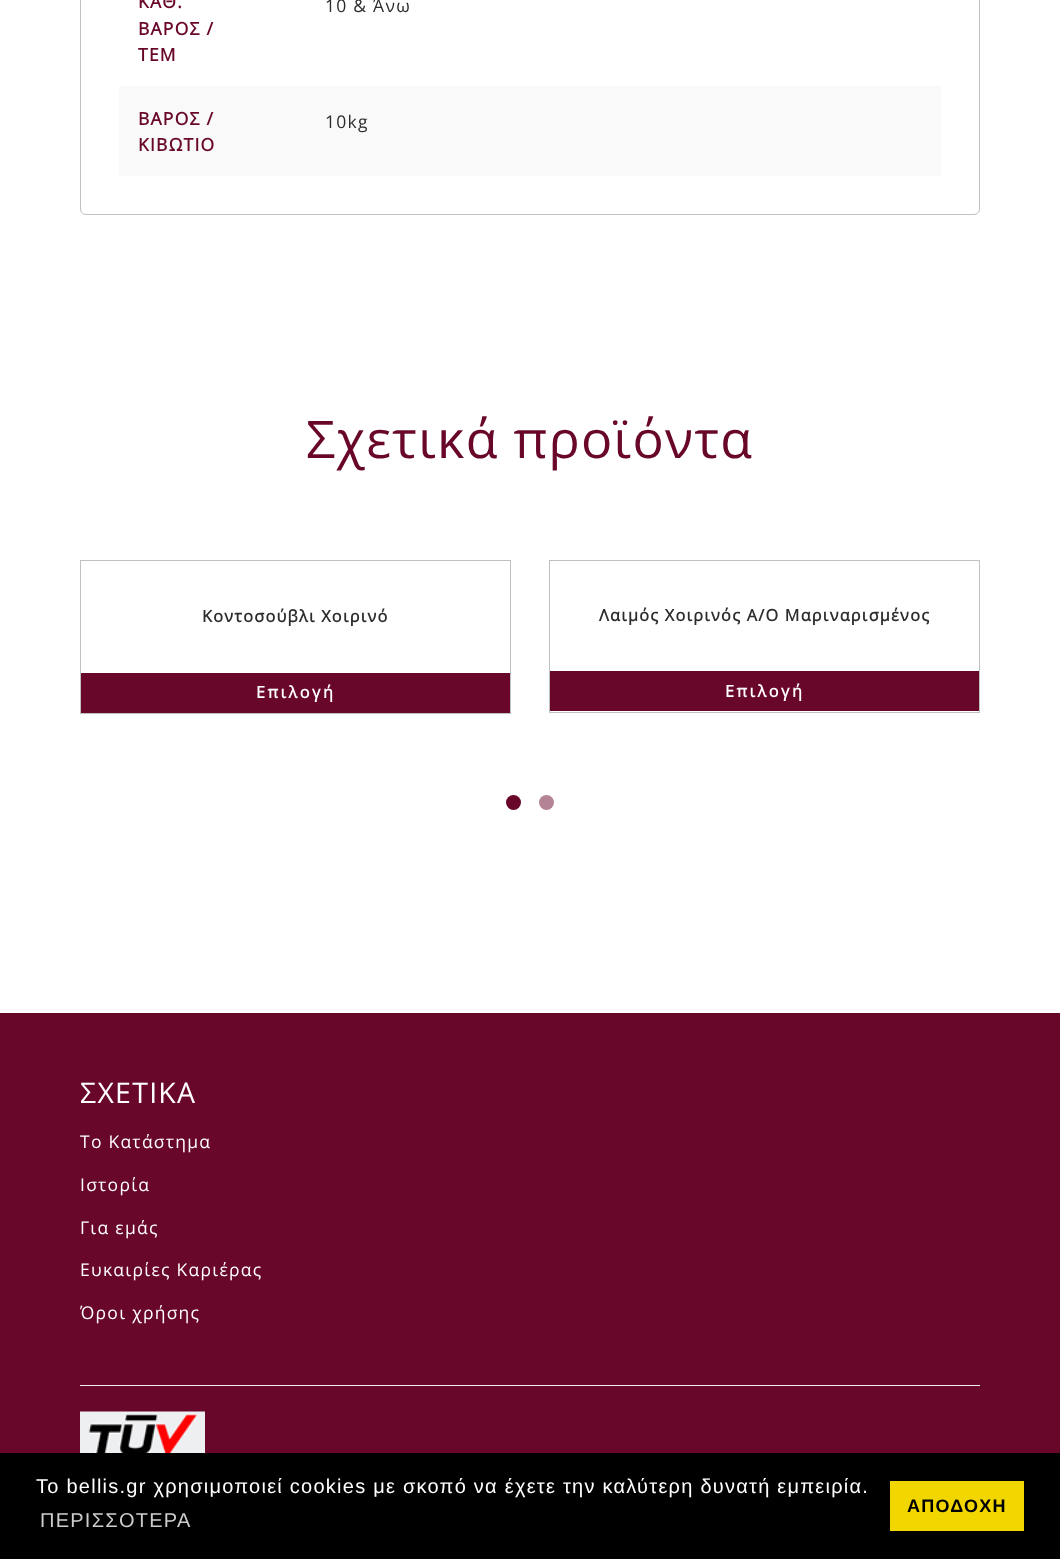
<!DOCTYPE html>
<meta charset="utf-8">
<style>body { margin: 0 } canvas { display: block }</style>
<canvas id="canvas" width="1060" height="1559"></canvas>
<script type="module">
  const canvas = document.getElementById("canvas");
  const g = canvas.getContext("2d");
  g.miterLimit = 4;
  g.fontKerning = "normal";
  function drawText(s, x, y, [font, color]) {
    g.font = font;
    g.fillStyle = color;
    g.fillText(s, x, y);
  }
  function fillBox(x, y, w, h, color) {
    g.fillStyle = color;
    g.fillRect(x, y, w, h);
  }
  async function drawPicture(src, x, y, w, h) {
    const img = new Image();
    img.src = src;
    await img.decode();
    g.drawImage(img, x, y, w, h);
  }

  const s1 = ["bold 17.5px Open Sans", "#69072A"];
  const s2 = ["17.5px Open Sans", "#2D2D2D"];
  const s3 = ["52px Open Sans", "#69072A"];
  const s4 = ["bold 16.25px Open Sans", "#2D2D2D"];
  const s5 = ["bold 16.25px Open Sans", "#FFFFFF"];
  const s6 = ["28.5px Open Sans", "#FFFFFF"];
  const s7 = ["17.5px Open Sans", "#FFFFFF"];
  const s8 = ["20px Liberation Sans", "#FFFFFF"];
  const s9 = ["20px Liberation Sans", "#CCCCCC"];
  const s10 = ["bold 18px Liberation Sans", "#000000"];

  fillBox(0, 0, 1060, 1559, "#FFFFFF");
  g.beginPath();
  g.roundRect(80.5, -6.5, 899, 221, 5.5);
  g.strokeStyle = "#C0C0C0";
  g.stroke();
  g.letterSpacing = "1.25px";
  drawText("ΚΑΘ.", 138, 8, s1);
  drawText("ΒΑΡΟΣ /", 138, 35, s1);
  drawText("ΤΕΜ", 138, 61, s1);
  drawText("10 & Άνω", 325, 12, s2);
  fillBox(119, 86, 822, 90, "#F9F9F9");
  drawText("ΒΑΡΟΣ /", 138, 125, s1);
  drawText("ΚΙΒΩΤΙΟ", 138, 151, s1);
  drawText("10kg", 325, 128, s2);
  drawText("Σχετικά προϊόντα", 306, 458, s3);
  g.strokeRect(80.5, 560.5, 430, 153);
  drawText("Κοντοσούβλι Χοιρινό", 202, 622, s4);
  fillBox(81, 673, 429, 40, "#69072A");
  g.letterSpacing = "2.5px";
  drawText("Επιλογή", 256, 698, s5);
  g.strokeRect(549.5, 560.5, 430, 152);
  g.letterSpacing = "1.25px";
  drawText("Λαιμός Χοιρινός A/O Μαριναρισμένος", 599, 621, s4);
  fillBox(550, 671, 429, 40, "#69072A");
  g.letterSpacing = "2.5px";
  drawText("Επιλογή", 725, 697, s5);
  g.fillStyle = "#69072A";
  g.beginPath();
  g.arc(513.5, 802.5, 7.5, 0, Math.PI * 2);
  g.fill();
  g.fillStyle = "#B48395";
  g.beginPath();
  g.arc(546.5, 802.5, 7.5, 0, Math.PI * 2);
  g.fill();
  fillBox(0, 1013, 1060, 440, "#69072A");
  g.letterSpacing = "1.25px";
  drawText("ΣΧΕΤΙΚΑ", 80, 1103, s6);
  drawText("Το Κατάστημα", 80, 1148, s7);
  drawText("Ιστορία", 80, 1191, s7);
  drawText("Για εμάς", 80, 1234, s7);
  drawText("Ευκαιρίες Καριέρας", 80, 1276, s7);
  drawText("Όροι χρήσης", 80, 1319, s7);
  fillBox(80, 1385, 900, 1, "#EEEEEE");
  await drawPicture("pic1.png", 80, 1411, 125, 42);
  fillBox(0, 1453, 1060, 106, "#000000");
  drawText("Το bellis.gr χρησιμοποιεί cookies με σκοπό να έχετε την καλύτερη δυνατή εμπειρία.", 36, 1493, s8);
  drawText("ΠΕΡΙΣΣΟΤΕΡΑ", 40, 1527, s9);
  fillBox(890, 1481, 134, 50, "#F1D600");
  drawText("ΑΠΟΔΟΧΗ", 907, 1512, s10);
</script>
